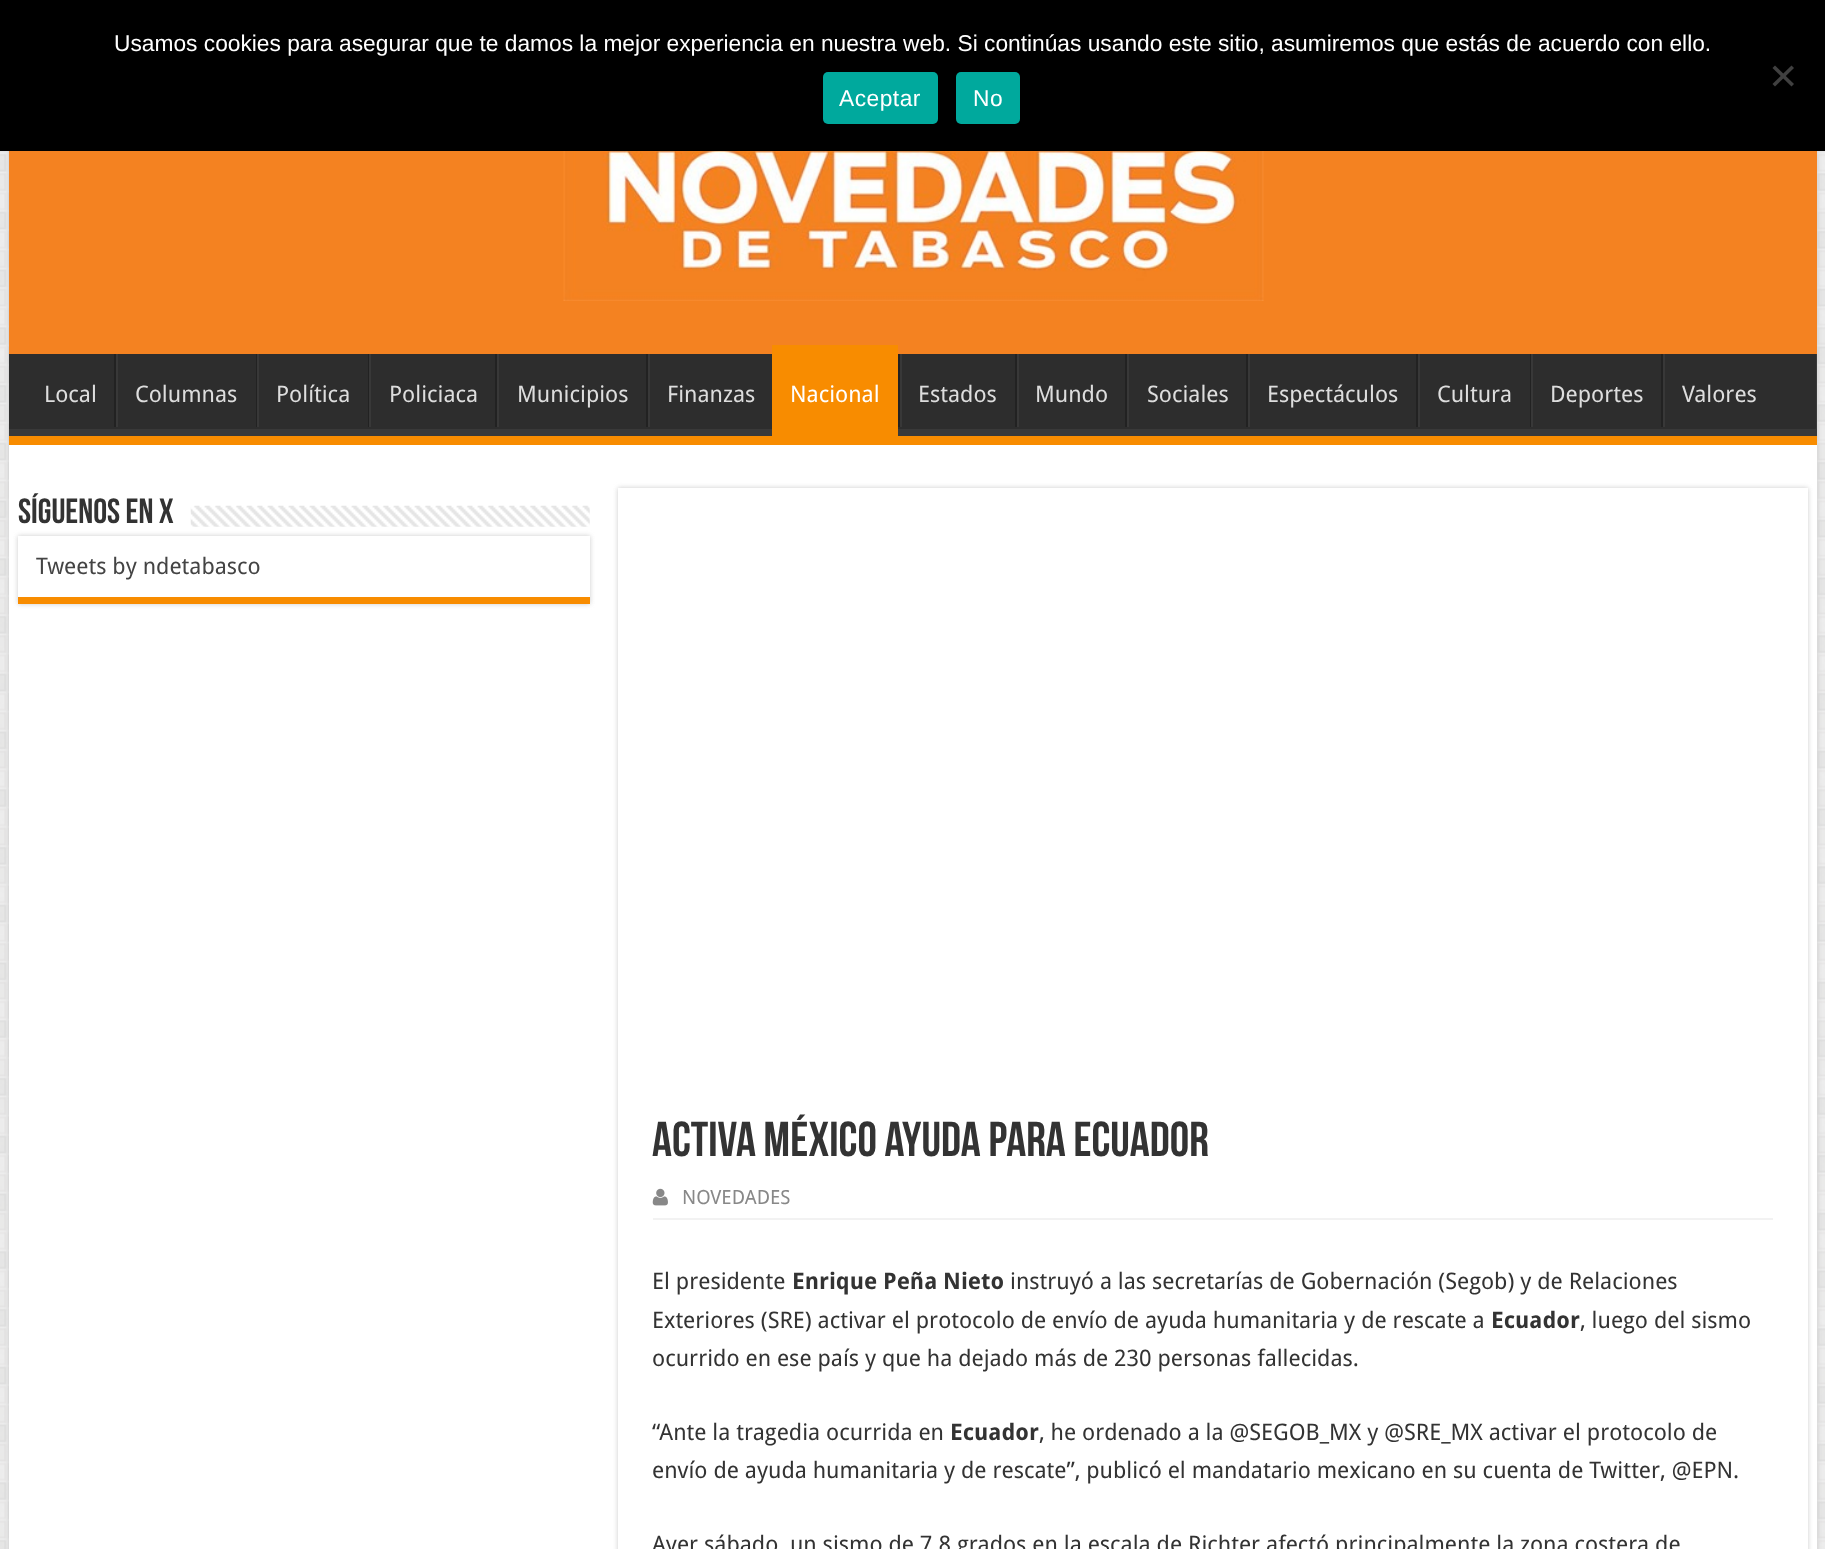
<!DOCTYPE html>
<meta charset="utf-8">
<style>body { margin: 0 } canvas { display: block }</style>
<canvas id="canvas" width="1825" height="1549"></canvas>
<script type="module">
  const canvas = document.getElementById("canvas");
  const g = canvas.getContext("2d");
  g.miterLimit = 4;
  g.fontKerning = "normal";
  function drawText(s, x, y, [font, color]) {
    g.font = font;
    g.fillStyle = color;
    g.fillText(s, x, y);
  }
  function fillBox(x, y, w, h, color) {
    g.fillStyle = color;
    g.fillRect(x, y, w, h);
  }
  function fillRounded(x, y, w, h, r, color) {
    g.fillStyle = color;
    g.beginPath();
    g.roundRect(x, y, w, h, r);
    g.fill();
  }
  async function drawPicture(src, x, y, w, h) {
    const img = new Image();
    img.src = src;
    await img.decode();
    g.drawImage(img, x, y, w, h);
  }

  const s1 = ["22.75px Liberation Sans", "#FFFFFF"];
  const s2 = ["22.75px Droid Sans", "#DDDDDD"];
  const s3 = ["22.75px Droid Sans", "#FFFFFF"];
  const s4 = ["bold 35px Bebas Neue", "#333333"];
  const s5 = ["22.75px Droid Sans", "#444444"];
  const s6 = ["bold 49px Bebas Neue", "#333333"];
  const s7 = ["19.5px Droid Sans", "#888888"];
  const s8 = ["22.75px Droid Sans", "#333333"];
  const s9 = ["bold 22.75px Droid Sans", "#333333"];

  fillBox(0, 0, 1825, 1549, "#EDEDED");
  await drawPicture("pic1.png", 0, 151, 1825, 1398);
  g.fillStyle = "#CACACA";
  g.filter = "blur(2.5px)";
  g.beginPath();
  g.rect(9, 0, 1808, 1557);
  g.fill();
  g.filter = "none";
  fillBox(0, 0, 1825, 151, "#000000");
  drawText("Usamos cookies para asegurar que te damos la mejor experiencia en nuestra web. Si continúas usando este sitio, asumiremos que estás de acuerdo con ello.", 114, 51, s1);
  g.fillStyle = "#404040";
  g.beginPath();
  g.moveTo(1791.5, 65.5);
  g.lineTo(1794, 68);
  g.lineTo(1775, 86.5);
  g.lineTo(1772.5, 84);
  g.closePath();
  g.fill();
  g.beginPath();
  g.moveTo(1772.5, 68);
  g.lineTo(1775, 65.5);
  g.lineTo(1794, 84);
  g.lineTo(1791.5, 86.5);
  g.closePath();
  g.fill();
  fillRounded(823, 72, 115, 52, 5, "#00A99D");
  g.letterSpacing = "0.5px";
  drawText("Aceptar", 839, 106, s1);
  fillRounded(956, 72, 64, 52, 5, "#00A99D");
  drawText("No", 973, 106, s1);
  fillBox(9, 445, 1808, 1104, "#FFFFFF");
  fillBox(9, 151, 1808, 203, "#F48221");
  await drawPicture("pic2.png", 563, 151, 701, 150);
  fillBox(9, 354, 1807, 75, "#2D2D2D");
  g.save();
  g.beginPath();
  g.rect(9, 354, 1808, 82);
  g.clip();
  g.fillStyle = "#393939";
  g.beginPath();
  g.moveTo(-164, 180);
  g.lineTo(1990, 180);
  g.lineTo(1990, 609);
  g.lineTo(-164, 609);
  g.closePath();
  g.moveTo(7, 343);
  g.lineTo(1815, 343);
  g.bezierCurveTo(1816, 343, 1816, 344, 1816, 345);
  g.lineTo(1816, 427);
  g.bezierCurveTo(1816, 428, 1816, 429, 1815, 429);
  g.lineTo(7, 429);
  g.bezierCurveTo(6, 429, 5, 428, 5, 427);
  g.lineTo(5, 345);
  g.bezierCurveTo(5, 344, 6, 343, 7, 343);
  g.closePath();
  g.fill("evenodd");
  g.restore();
  fillBox(9, 436, 1808, 9, "#F88C00");
  g.letterSpacing = "0px";
  drawText("Local", 44, 402, s2);
  fillBox(114, 354, 2, 73, "#222222");
  fillBox(116, 354, 2, 73, "#383838");
  drawText("Columnas", 135, 402, s2);
  fillBox(256, 354, 1, 73, "#222222");
  fillBox(257, 354, 2, 73, "#383838");
  drawText("Política", 276, 402, s2);
  fillBox(368, 354, 1, 73, "#222222");
  fillBox(369, 354, 2, 73, "#383838");
  drawText("Policiaca", 389, 402, s2);
  fillBox(495, 354, 2, 73, "#222222");
  fillBox(497, 354, 2, 73, "#383838");
  drawText("Municipios", 517, 402, s2);
  fillBox(646, 354, 2, 73, "#222222");
  fillBox(648, 354, 2, 73, "#383838");
  drawText("Finanzas", 667, 402, s2);
  fillBox(772, 345, 126, 91, "#F88C00");
  drawText("Nacional", 790, 402, s3);
  fillBox(898, 354, 2, 73, "#222222");
  fillBox(900, 354, 2, 73, "#383838");
  drawText("Estados", 918, 402, s2);
  fillBox(1015, 354, 2, 73, "#222222");
  fillBox(1017, 354, 2, 73, "#383838");
  drawText("Mundo", 1035, 402, s2);
  fillBox(1125, 354, 2, 73, "#222222");
  fillBox(1127, 354, 2, 73, "#383838");
  drawText("Sociales", 1147, 402, s2);
  fillBox(1246, 354, 2, 73, "#222222");
  fillBox(1248, 354, 2, 73, "#383838");
  drawText("Espectáculos", 1267, 402, s2);
  fillBox(1416, 354, 2, 73, "#222222");
  fillBox(1418, 354, 2, 73, "#383838");
  drawText("Cultura", 1437, 402, s2);
  fillBox(1530, 354, 1, 73, "#222222");
  fillBox(1531, 354, 2, 73, "#383838");
  drawText("Deportes", 1550, 402, s2);
  fillBox(1661, 354, 2, 73, "#222222");
  fillBox(1663, 354, 2, 73, "#383838");
  drawText("Valores", 1682, 402, s2);
  drawText("SÍGUENOS EN X", 18, 523, s4);
  await drawPicture("pic3.png", 190, 505, 400, 22);
  g.fillStyle = "#CACACA";
  g.filter = "blur(2.5px)";
  g.beginPath();
  g.rect(18, 536, 572, 68);
  g.fill();
  g.filter = "none";
  fillBox(18, 536, 572, 61, "#FFFFFF");
  fillBox(18, 597, 572, 7, "#F88C00");
  drawText("Tweets by ndetabasco", 36, 574, s5);
  g.fillStyle = "#CACACA";
  g.filter = "blur(2.5px)";
  g.beginPath();
  g.rect(618, 488, 1190, 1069);
  g.fill();
  g.filter = "none";
  fillBox(618, 488, 1190, 1061, "#FFFFFF");
  drawText("Activa México ayuda para Ecuador", 652, 1156, s6);
  fillBox(653, 1218, 1120, 2, "#F2F2F2");
  await drawPicture("pic4.png", 652, 1188, 16, 18);
  drawText("NOVEDADES", 682, 1204, s7);
  drawText("El presidente", 652, 1289, s8);
  drawText("Enrique Peña Nieto", 792, 1289, s9);
  drawText("instruyó a las secretarías de Gobernación (Segob) y de Relaciones", 1010, 1289, s8);
  drawText("Exteriores (SRE) activar el protocolo de envío de ayuda humanitaria y de rescate a", 652, 1328, s8);
  drawText("Ecuador", 1491, 1328, s9);
  drawText(", luego del sismo", 1580, 1328, s8);
  drawText("ocurrido en ese país y que ha dejado más de 230 personas fallecidas.", 652, 1366, s8);
  drawText("“Ante la tragedia ocurrida en", 652, 1440, s8);
  drawText("Ecuador", 950, 1440, s9);
  drawText(", he ordenado a la @SEGOB_MX y @SRE_MX activar el protocolo de", 1039, 1440, s8);
  drawText("envío de ayuda humanitaria y de rescate”, publicó el mandatario mexicano en su cuenta de Twitter, @EPN.", 652, 1478, s8);
  drawText("Ayer sábado, un sismo de 7.8 grados en la escala de Richter afectó principalmente la zona costera de", 652, 1552, s8);
</script>
